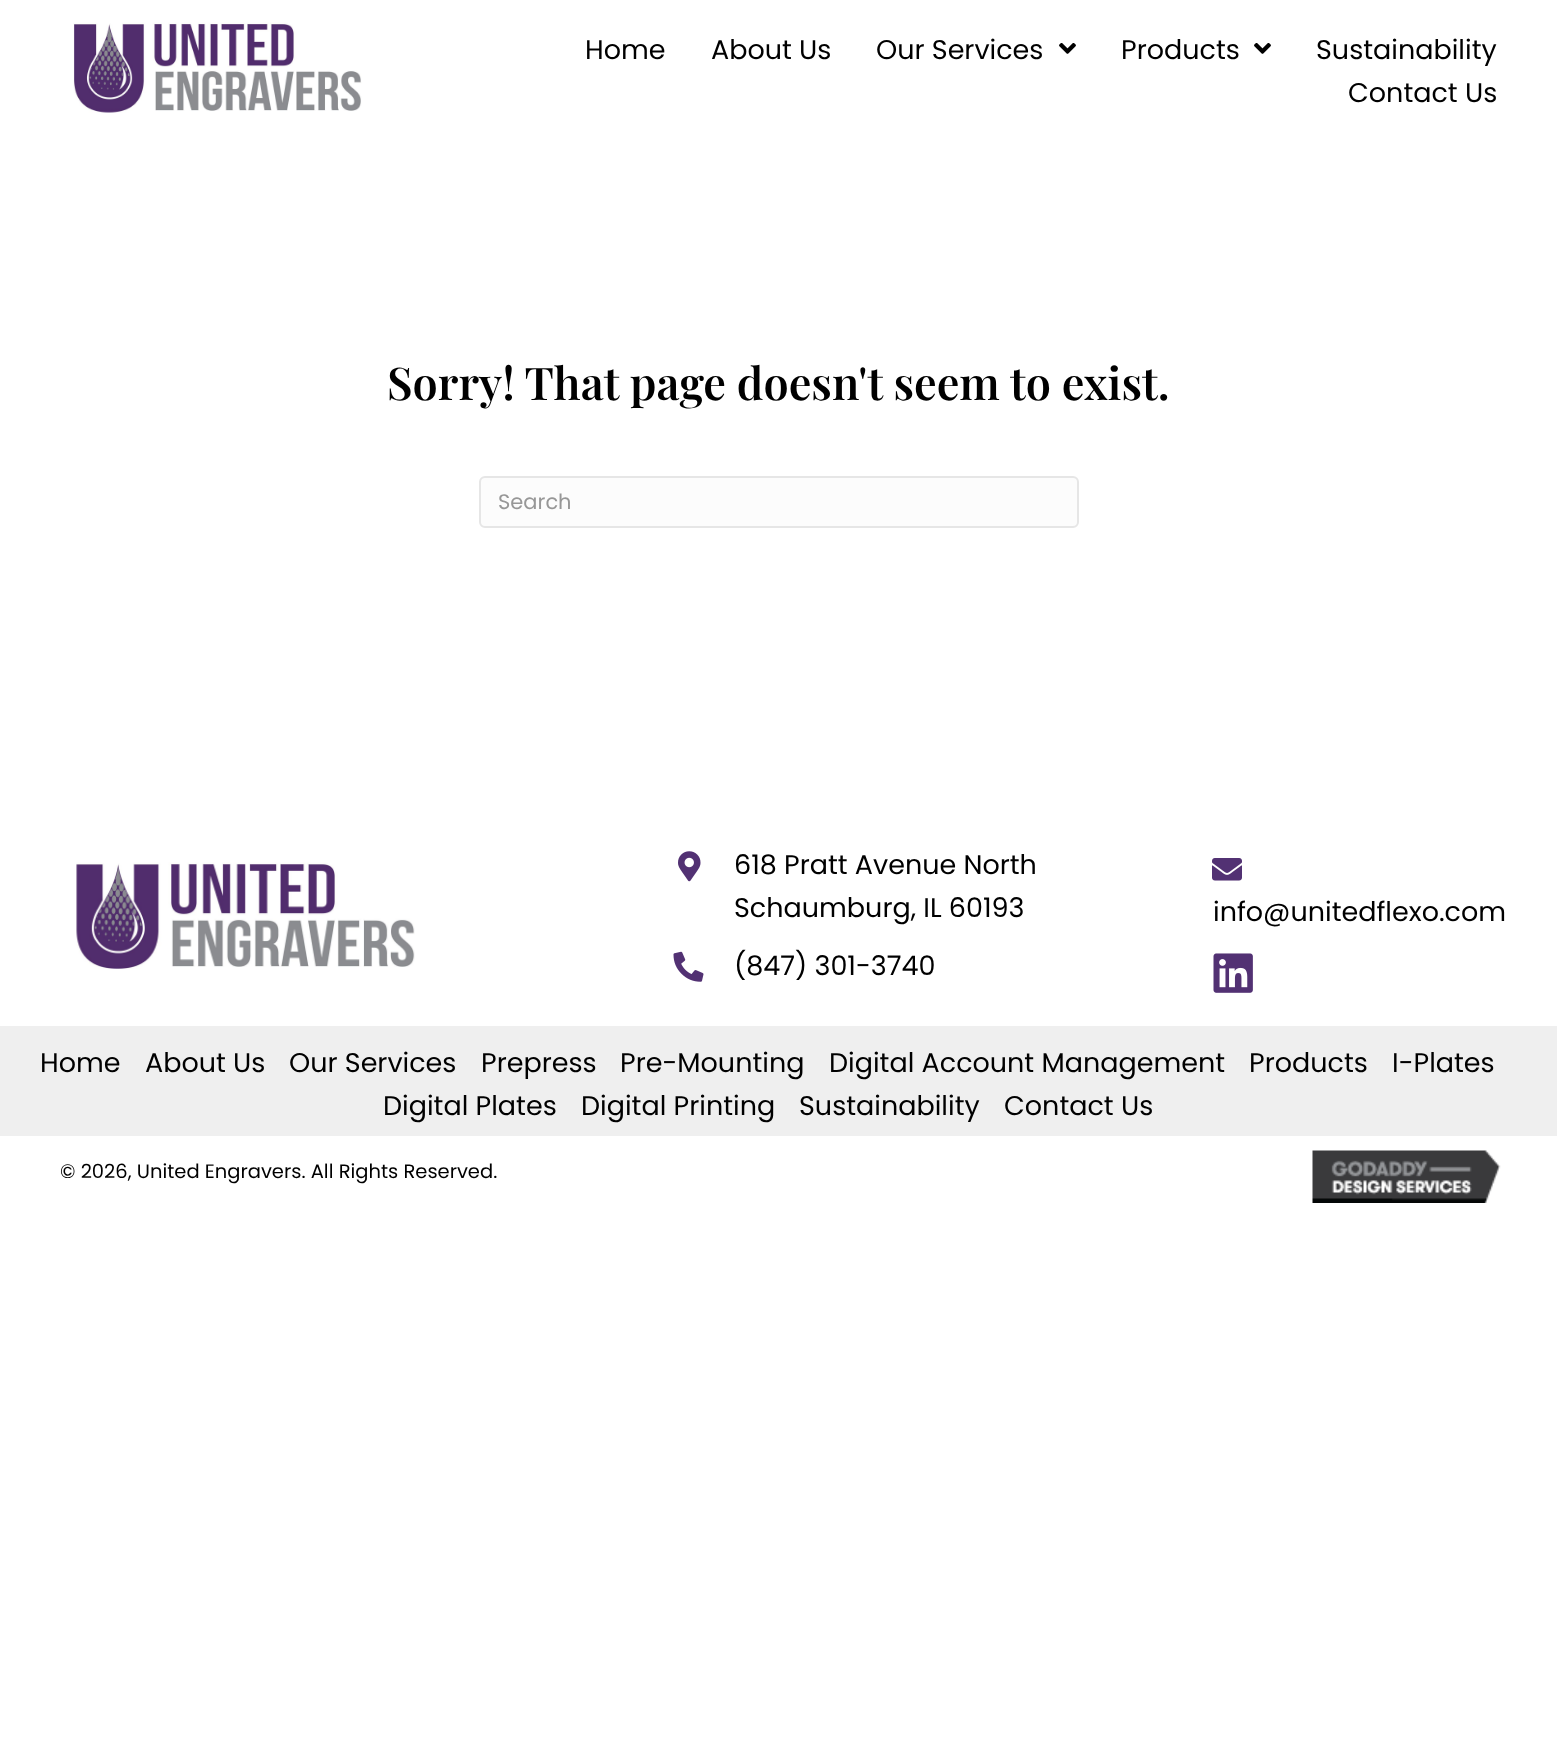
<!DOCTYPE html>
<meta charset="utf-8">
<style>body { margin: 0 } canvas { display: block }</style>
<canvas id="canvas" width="1557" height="1764"></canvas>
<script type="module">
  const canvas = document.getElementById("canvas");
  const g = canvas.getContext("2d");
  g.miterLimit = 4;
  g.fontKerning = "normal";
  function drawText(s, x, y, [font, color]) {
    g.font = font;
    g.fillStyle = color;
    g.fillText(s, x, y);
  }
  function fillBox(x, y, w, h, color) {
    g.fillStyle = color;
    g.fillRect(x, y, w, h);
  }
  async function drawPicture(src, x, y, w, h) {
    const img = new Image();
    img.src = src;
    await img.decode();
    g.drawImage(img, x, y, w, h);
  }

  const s1 = ["27px Poppins", "#000000"];
  const s2 = ["600 45px Playfair Display", "#000000"];
  const s3 = ["21px Poppins", "#979797"];
  const s4 = ["19.5px Poppins", "#000000"];

  fillBox(0, 0, 1557, 1764, "#FFFFFF");
  await drawPicture("pic1.png", 73, 22, 289, 91);
  drawText("Home", 585, 59, s1);
  drawText("About Us", 711, 59, s1);
  drawText("Our Services", 876, 59, s1);
  await drawPicture("pic2.png", 1059, 43, 17, 11);
  drawText("Products", 1121, 59, s1);
  await drawPicture("pic2.png", 1254, 43, 17, 11);
  drawText("Sustainability", 1316, 59, s1);
  drawText("Contact Us", 1348, 102, s1);
  drawText("Sorry! That page doesn't seem to exist.", 387, 400, s2);
  g.fillStyle = "#FCFCFC";
  g.beginPath();
  g.roundRect(480, 477, 598, 50, 5);
  g.fill();
  g.strokeStyle = "#E6E6E6";
  g.lineWidth = 2;
  g.stroke();
  drawText("Search", 498, 509, s3);
  await drawPicture("pic3.png", 76, 862, 339, 107);
  await drawPicture("pic4.png", 678, 851, 23, 31);
  drawText("618 Pratt Avenue North", 734, 874, s1);
  drawText("Schaumburg, IL 60193", 734, 917, s1);
  await drawPicture("pic5.png", 673, 951, 31, 31);
  drawText("(847) 301-3740", 734, 975, s1);
  await drawPicture("pic6.png", 1212, 858, 30, 23);
  drawText("info@unitedflexo.com", 1213, 921, s1);
  await drawPicture("pic7.png", 1213, 953, 40, 40);
  fillBox(0, 1026, 1557, 110, "#EFEFEF");
  drawText("Home", 40, 1072, s1);
  drawText("About Us", 145, 1072, s1);
  drawText("Our Services", 289, 1072, s1);
  drawText("Prepress", 481, 1072, s1);
  drawText("Pre-Mounting", 620, 1072, s1);
  drawText("Digital Account Management", 829, 1072, s1);
  drawText("Products", 1249, 1072, s1);
  drawText("I-Plates", 1392, 1072, s1);
  drawText("Digital Plates", 383, 1115, s1);
  drawText("Digital Printing", 581, 1115, s1);
  drawText("Sustainability", 799, 1115, s1);
  drawText("Contact Us", 1004, 1115, s1);
  drawText("© 2026, United Engravers. All Rights Reserved.", 60, 1178, s4);
  await drawPicture("pic8.png", 1312, 1150, 189, 53);
</script>
